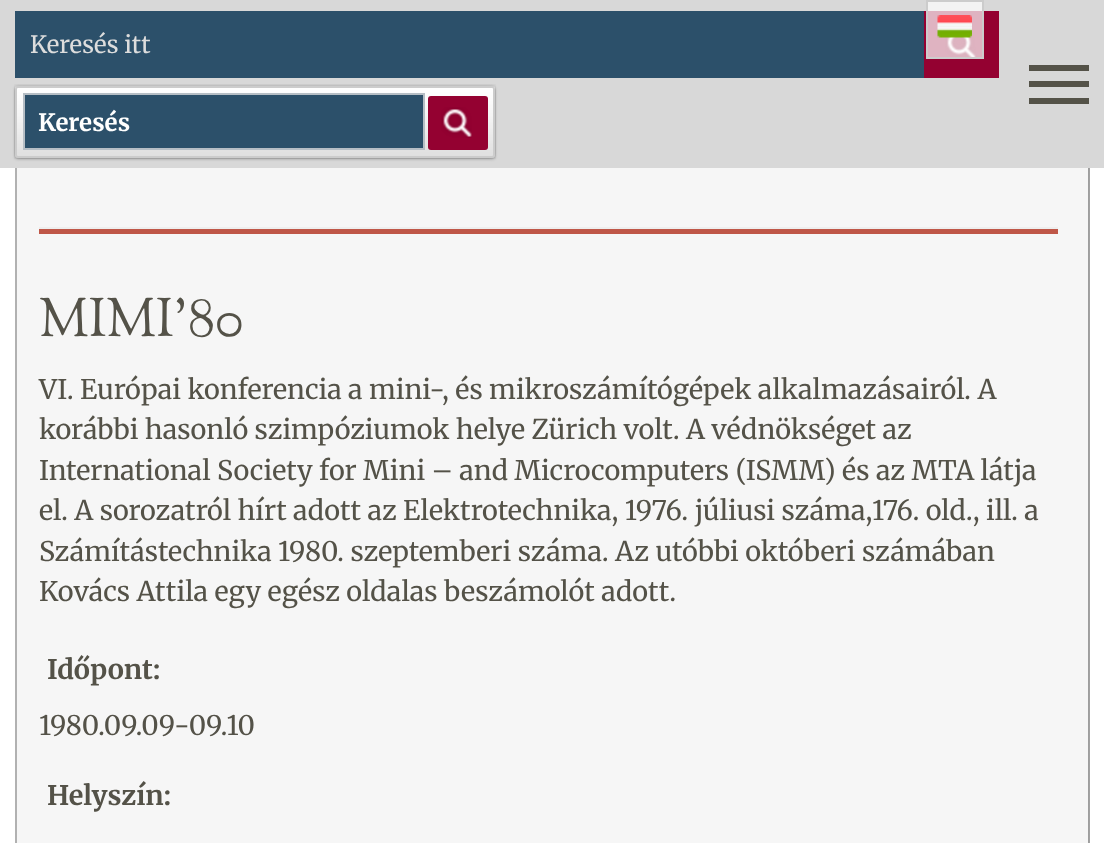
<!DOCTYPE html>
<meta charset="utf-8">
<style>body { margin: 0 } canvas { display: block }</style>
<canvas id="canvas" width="1104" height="843"></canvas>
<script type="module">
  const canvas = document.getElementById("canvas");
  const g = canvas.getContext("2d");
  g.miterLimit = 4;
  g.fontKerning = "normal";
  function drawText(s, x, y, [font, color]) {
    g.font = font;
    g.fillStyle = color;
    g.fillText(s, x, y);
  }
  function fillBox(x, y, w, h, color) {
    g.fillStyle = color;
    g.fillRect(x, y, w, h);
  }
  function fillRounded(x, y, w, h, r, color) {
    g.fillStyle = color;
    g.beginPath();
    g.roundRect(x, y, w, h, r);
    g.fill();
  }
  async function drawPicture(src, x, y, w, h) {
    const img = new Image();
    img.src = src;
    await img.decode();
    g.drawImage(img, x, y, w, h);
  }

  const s1 = ["24px Merriweather", "#DDDDDD"];
  const s2 = ["bold 24px Merriweather", "#FFFFFF"];
  const s3 = ["54px Sorts Mill Goudy", "#545248"];
  const s4 = ["27px Merriweather", "#545248"];
  const s5 = ["bold 27px Merriweather", "#545248"];

  fillBox(0, 0, 1104, 843, "#FFFFFF");
  fillBox(1089, 168, 1, 675, "#A2A2A2");
  fillBox(0, 0, 1104, 168, "#D8D8D8");
  fillBox(928, 2, 54, 9, "#F3F3F3");
  fillBox(15, 11, 909, 67, "#2C506A");
  drawText("Keresés itt", 30, 53, s1);
  fillBox(924, 11, 75, 67, "#940131");
  fillBox(928, 11, 54, 46, "#DFB3C1");
  await drawPicture("pic1.png", 945, 33, 31, 27);
  g.fillStyle = "#999999";
  g.filter = "blur(1.5px)";
  g.beginPath();
  g.roundRect(15, 87, 480, 72, 3);
  g.fill();
  g.filter = "none";
  await drawPicture("pic2.png", 14, 84, 482, 75);
  g.beginPath();
  g.roundRect(16, 87, 478, 70, 2);
  g.strokeStyle = "#CCCCCC";
  g.lineWidth = 2;
  g.stroke();
  g.fillStyle = "#2C506A";
  g.beginPath();
  g.rect(24, 94, 400, 55);
  g.fill();
  g.strokeStyle = "#B6BEC5";
  g.stroke();
  drawText("Keresés", 38, 131, s2);
  fillRounded(428, 96, 60, 54, 3, "#940131");
  await drawPicture("pic3.png", 441, 107, 31, 31);
  fillBox(1029, 65, 60, 6, "#545248");
  fillBox(1029, 81, 60, 6, "#545248");
  fillBox(1029, 98, 60, 6, "#545248");
  g.strokeStyle = "#CCCCCC";
  g.strokeRect(927, 1, 56, 57);
  await drawPicture("pic4.png", 937, 15, 35, 23);
  fillBox(17, 168, 1071, 675, "#F6F6F6");
  fillBox(1088, 168, 1, 675, "#9E9E9E");
  fillBox(15, 168, 2, 675, "#B1B1B1");
  fillBox(39, 229, 1019, 5, "#BF5748");
  fillBox(39, 227, 1019, 2, "#EEEEEE");
  drawText("MIMI’80", 39, 336, s3);
  drawText("VI. Európai konferencia a mini-, és mikroszámítógépek alkalmazásairól. A", 39, 399, s4);
  drawText("korábbi hasonló szimpóziumok helye Zürich volt. A védnökséget az", 39, 439, s4);
  drawText("International Society for Mini – and Microcomputers (ISMM) és az MTA látja", 39, 480, s4);
  drawText("el. A sorozatról hírt adott az Elektrotechnika, 1976. júliusi száma,176. old., ill. a", 39, 520, s4);
  drawText("Számítástechnika 1980. szeptemberi száma. Az utóbbi októberi számában", 39, 561, s4);
  drawText("Kovács Attila egy egész oldalas beszámolót adott.", 39, 601, s4);
  drawText("Időpont:", 47, 679, s5);
  drawText("1980.09.09-09.10", 39, 735, s4);
  drawText("Helyszín:", 47, 805, s5);
</script>
